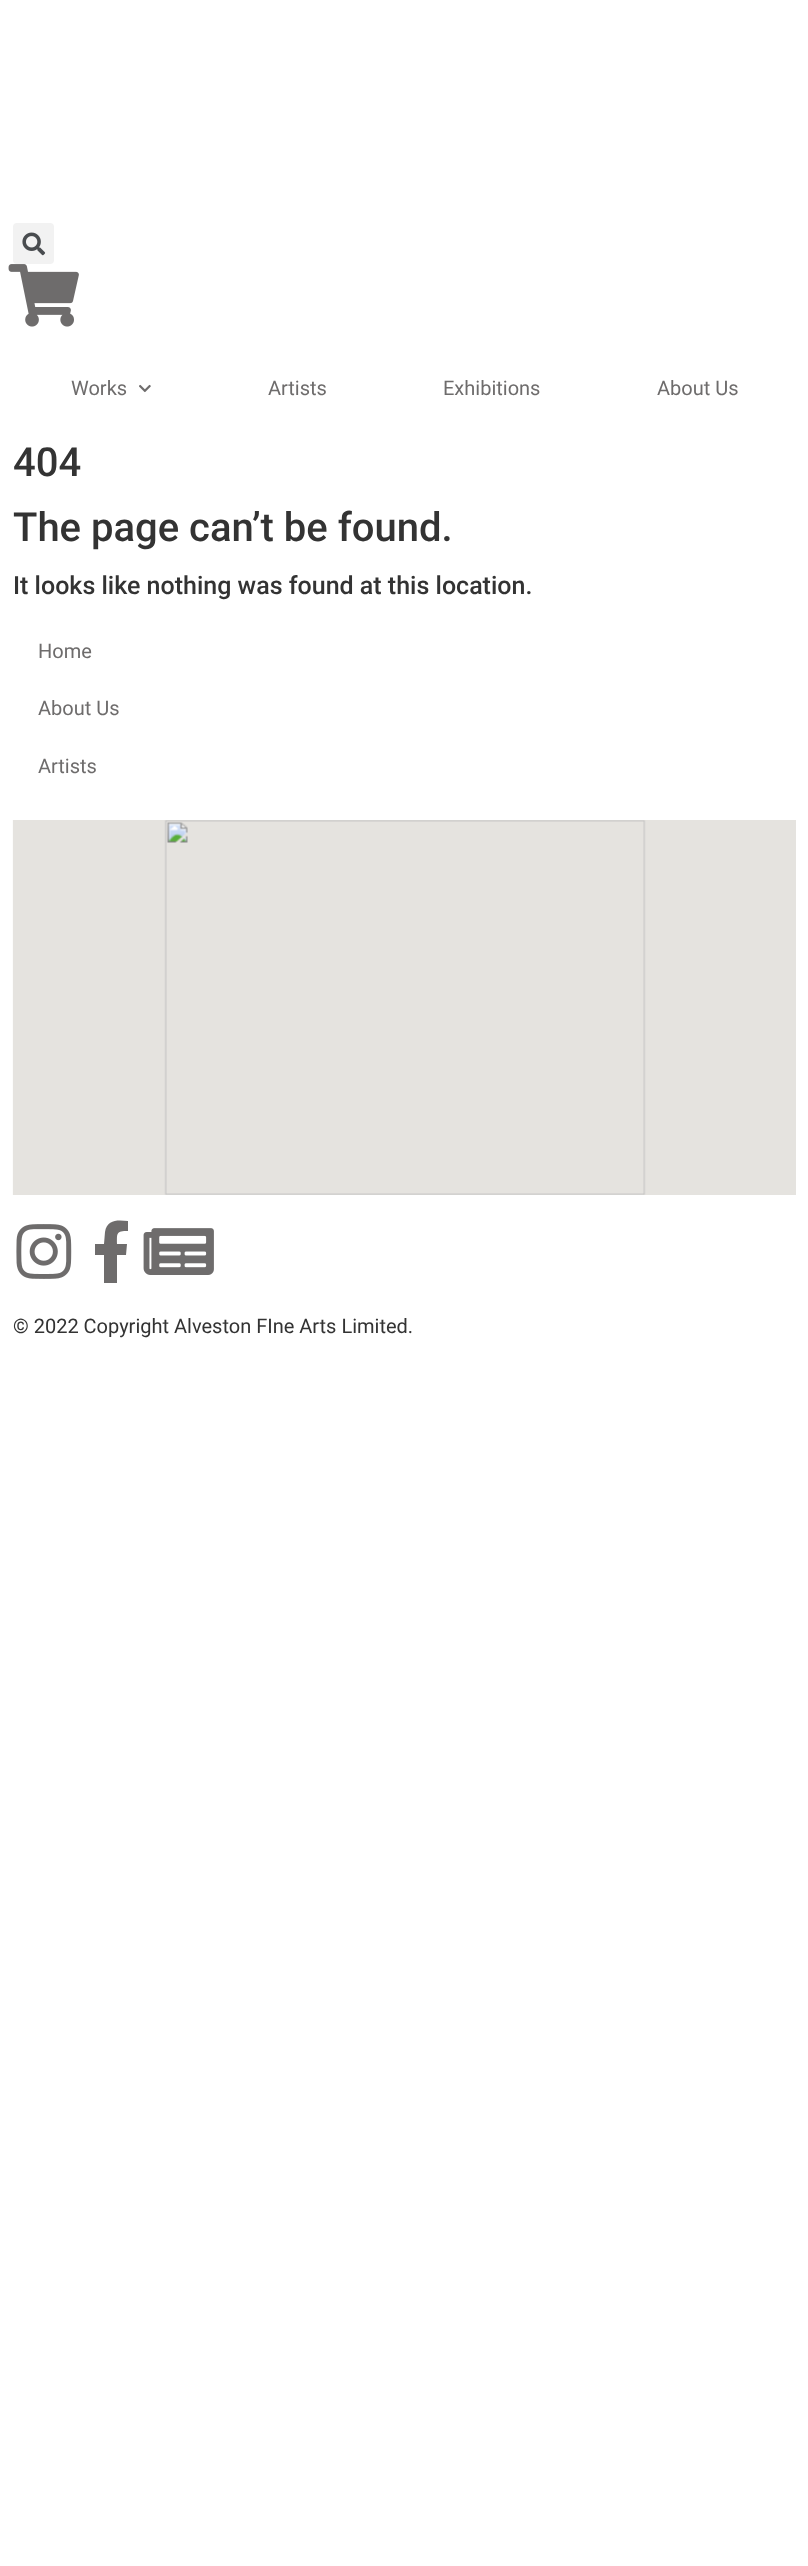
<!DOCTYPE html>
<meta charset="utf-8">
<style>body { margin: 0 } canvas { display: block }</style>
<canvas id="canvas" width="808" height="2566"></canvas>
<script type="module">
  const canvas = document.getElementById("canvas");
  const g = canvas.getContext("2d");
  g.miterLimit = 4;
  g.fontKerning = "normal";
  function drawText(s, x, y, [font, color]) {
    g.font = font;
    g.fillStyle = color;
    g.fillText(s, x, y);
  }
  function fillBox(x, y, w, h, color) {
    g.fillStyle = color;
    g.fillRect(x, y, w, h);
  }
  function fillRounded(x, y, w, h, r, color) {
    g.fillStyle = color;
    g.beginPath();
    g.roundRect(x, y, w, h, r);
    g.fill();
  }
  async function drawPicture(src, x, y, w, h) {
    const img = new Image();
    img.src = src;
    await img.decode();
    g.drawImage(img, x, y, w, h);
  }

  const s1 = ["20px Roboto", "#6E6C6C"];
  const s2 = ["500 40px Roboto", "#333333"];
  const s3 = ["500 25px Roboto", "#333333"];
  const s4 = ["20px Roboto", "#333333"];

  fillBox(0, 0, 808, 2566, "#FFFFFF");
  fillRounded(13, 223, 41, 41, 4, "#F2F2F2");
  await drawPicture("pic1.png", 22, 232, 24, 24);
  await drawPicture("pic2.png", 8, 264, 71, 63);
  drawText("Works", 71, 395, s1);
  await drawPicture("pic3.png", 139, 384, 12, 9);
  drawText("Artists", 268, 395, s1);
  drawText("Exhibitions", 443, 395, s1);
  drawText("About Us", 657, 395, s1);
  drawText("404", 13, 476, s2);
  drawText("The page can’t be found.", 13, 541, s2);
  drawText("It looks like nothing was found at this location.", 13, 594, s3);
  drawText("Home", 38, 658, s1);
  drawText("About Us", 38, 715, s1);
  drawText("Artists", 38, 773, s1);
  await drawPicture("pic4.png", 12, 820, 784, 375);
  await drawPicture("pic5.png", 16, 1224, 56, 55);
  g.beginPath();
  g.moveTo(126, 1255);
  g.lineTo(117, 1255);
  g.lineTo(117, 1283);
  g.lineTo(104, 1283);
  g.lineTo(104, 1255);
  g.lineTo(95, 1255);
  g.lineTo(95, 1244);
  g.lineTo(104, 1244);
  g.lineTo(105, 1232);
  g.bezierCurveTo(107, 1219, 118, 1220, 128, 1221);
  g.lineTo(128, 1231);
  g.bezierCurveTo(116, 1231, 117, 1233, 117, 1244);
  g.lineTo(127, 1244);
  g.closePath();
  g.fill();
  await drawPicture("pic6.png", 143, 1228, 71, 47);
  drawText("© 2022 Copyright Alveston FIne Arts Limited.", 13, 1333, s4);
</script>
